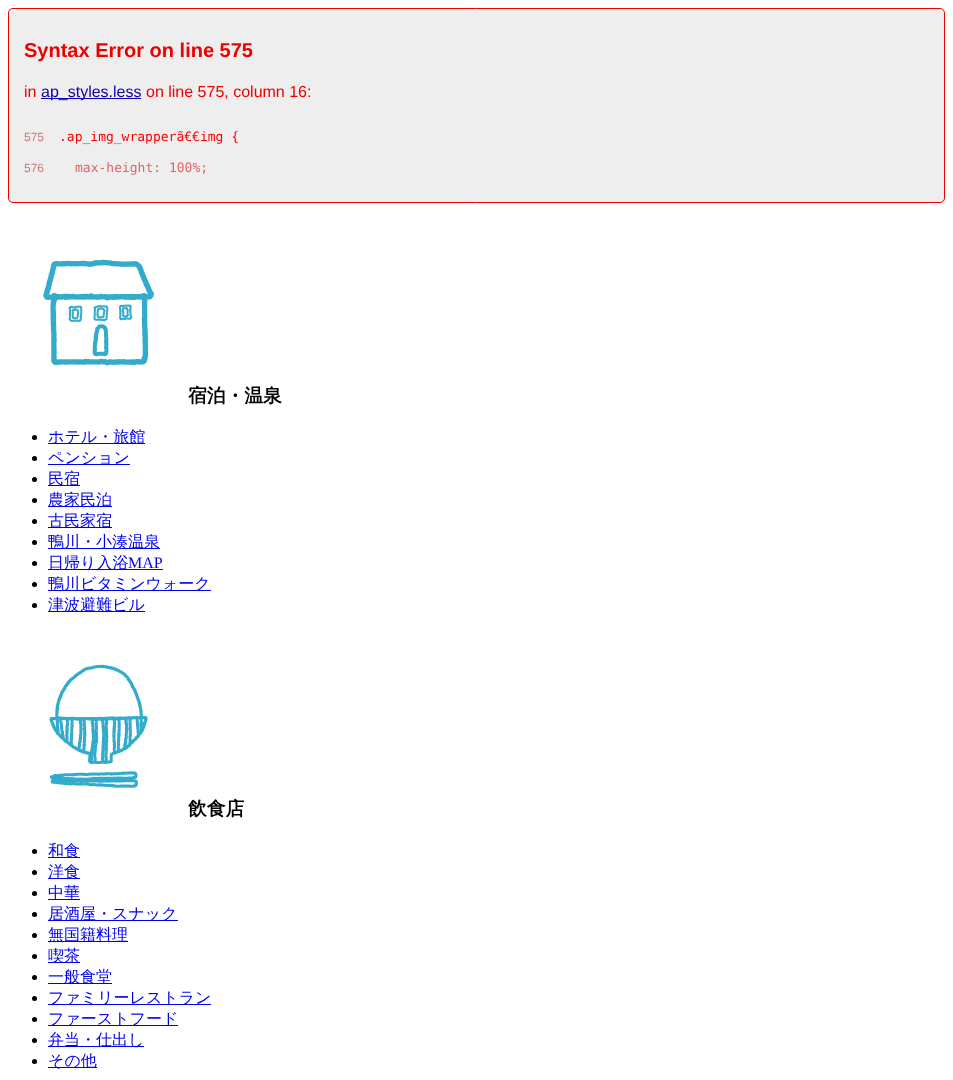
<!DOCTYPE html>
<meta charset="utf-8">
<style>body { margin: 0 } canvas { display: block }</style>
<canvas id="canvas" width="953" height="1080"></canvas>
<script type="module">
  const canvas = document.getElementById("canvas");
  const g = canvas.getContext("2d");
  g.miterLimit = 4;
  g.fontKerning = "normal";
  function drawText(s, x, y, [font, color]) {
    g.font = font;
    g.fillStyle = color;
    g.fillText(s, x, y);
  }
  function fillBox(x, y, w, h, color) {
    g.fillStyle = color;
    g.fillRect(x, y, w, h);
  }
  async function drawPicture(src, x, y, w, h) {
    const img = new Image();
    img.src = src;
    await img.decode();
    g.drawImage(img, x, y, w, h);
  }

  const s1 = ["bold 20px Liberation Sans", "#EE0000"];
  const s2 = ["16px Liberation Sans", "#EE0000"];
  const s3 = ["16px Liberation Sans", "#1100AA"];
  const s4 = ["12px Liberation Sans", "#CC7777"];
  const s5 = ["13px DejaVu Sans Mono", "#FF0000"];
  const s6 = ["13px DejaVu Sans Mono", "#DD6666"];
  const s7 = ["bold 18.75px WenQuanYi Zen Hei", "#000000"];
  const s8 = ["500 16px WenQuanYi Zen Hei", "#0000EE"];
  const s9 = ["16px Liberation Serif", "#0000EE"];

  fillBox(0, 0, 953, 1080, "#FFFFFF");
  g.fillStyle = "#EEEEEE";
  g.beginPath();
  g.roundRect(8.5, 8.5, 936, 194, 4.5);
  g.fill();
  g.strokeStyle = "#EE0000";
  g.stroke();
  drawText("Syntax Error on line 575", 24, 57, s1);
  drawText("in", 24, 97, s2);
  fillBox(41, 98, 100, 1, "#1100AA");
  drawText("ap_styles.less", 41, 97, s3);
  drawText("on line 575, column 16:", 146, 97, s2);
  drawText("575", 24, 141, s4);
  drawText(".ap_img_wrapperã€€img {", 59, 141, s5);
  drawText("576", 24, 172, s4);
  drawText("max-height: 100%;", 75, 172, s6);
  await drawPicture("pic1.png", 43, 259, 111, 107);
  drawText("宿泊・温泉", 188, 402, s7);
  g.beginPath();
  g.arc(34.5, 437.5, 2.5, 0, Math.PI * 2);
  g.fill();
  fillBox(48, 443, 97, 1, "#0000EE");
  drawText("ホテル・旅館", 48, 442, s8);
  g.fillStyle = "#000000";
  g.beginPath();
  g.arc(34.5, 458.5, 2.5, 0, Math.PI * 2);
  g.fill();
  fillBox(48, 464, 82, 1, "#0000EE");
  drawText("ペンション", 48, 463, s8);
  g.fillStyle = "#000000";
  g.beginPath();
  g.arc(34.5, 479.5, 2.5, 0, Math.PI * 2);
  g.fill();
  fillBox(48, 485, 32, 1, "#0000EE");
  drawText("民宿", 48, 484, s8);
  g.fillStyle = "#000000";
  g.beginPath();
  g.arc(34.5, 500.5, 2.5, 0, Math.PI * 2);
  g.fill();
  fillBox(48, 506, 64, 1, "#0000EE");
  drawText("農家民泊", 48, 505, s8);
  g.fillStyle = "#000000";
  g.beginPath();
  g.arc(34.5, 521.5, 2.5, 0, Math.PI * 2);
  g.fill();
  fillBox(48, 527, 64, 1, "#0000EE");
  drawText("古民家宿", 48, 526, s8);
  g.fillStyle = "#000000";
  g.beginPath();
  g.arc(34.5, 542.5, 2.5, 0, Math.PI * 2);
  g.fill();
  fillBox(48, 548, 112, 1, "#0000EE");
  drawText("鴨川・小湊温泉", 48, 547, s8);
  g.fillStyle = "#000000";
  g.beginPath();
  g.arc(34.5, 563.5, 2.5, 0, Math.PI * 2);
  g.fill();
  fillBox(48, 569, 115, 1, "#0000EE");
  drawText("日帰り入浴", 48, 568, s8);
  drawText("MAP", 128, 568, s9);
  g.fillStyle = "#000000";
  g.beginPath();
  g.arc(34.5, 584.5, 2.5, 0, Math.PI * 2);
  g.fill();
  fillBox(48, 590, 163, 1, "#0000EE");
  drawText("鴨川ビタミンウォーク", 48, 589, s8);
  g.fillStyle = "#000000";
  g.beginPath();
  g.arc(34.5, 605.5, 2.5, 0, Math.PI * 2);
  g.fill();
  fillBox(48, 611, 97, 1, "#0000EE");
  drawText("津波避難ビル", 48, 610, s8);
  await drawPicture("pic2.png", 49, 664, 99, 124);
  drawText("飲食店", 188, 815, s7);
  g.beginPath();
  g.arc(34.5, 851.5, 2.5, 0, Math.PI * 2);
  g.fill();
  fillBox(48, 857, 32, 1, "#0000EE");
  drawText("和食", 48, 856, s8);
  g.fillStyle = "#000000";
  g.beginPath();
  g.arc(34.5, 872.5, 2.5, 0, Math.PI * 2);
  g.fill();
  fillBox(48, 878, 32, 1, "#0000EE");
  drawText("洋食", 48, 877, s8);
  g.fillStyle = "#000000";
  g.beginPath();
  g.arc(34.5, 893.5, 2.5, 0, Math.PI * 2);
  g.fill();
  fillBox(48, 899, 32, 1, "#0000EE");
  drawText("中華", 48, 898, s8);
  g.fillStyle = "#000000";
  g.beginPath();
  g.arc(34.5, 914.5, 2.5, 0, Math.PI * 2);
  g.fill();
  fillBox(48, 920, 130, 1, "#0000EE");
  drawText("居酒屋・スナック", 48, 919, s8);
  g.fillStyle = "#000000";
  g.beginPath();
  g.arc(34.5, 935.5, 2.5, 0, Math.PI * 2);
  g.fill();
  fillBox(48, 941, 80, 1, "#0000EE");
  drawText("無国籍料理", 48, 940, s8);
  g.fillStyle = "#000000";
  g.beginPath();
  g.arc(34.5, 956.5, 2.5, 0, Math.PI * 2);
  g.fill();
  fillBox(48, 962, 32, 1, "#0000EE");
  drawText("喫茶", 48, 961, s8);
  g.fillStyle = "#000000";
  g.beginPath();
  g.arc(34.5, 977.5, 2.5, 0, Math.PI * 2);
  g.fill();
  fillBox(48, 983, 64, 1, "#0000EE");
  drawText("一般食堂", 48, 982, s8);
  g.fillStyle = "#000000";
  g.beginPath();
  g.arc(34.5, 998.5, 2.5, 0, Math.PI * 2);
  g.fill();
  fillBox(48, 1004, 163, 1, "#0000EE");
  drawText("ファミリーレストラン", 48, 1003, s8);
  g.fillStyle = "#000000";
  g.beginPath();
  g.arc(34.5, 1019.5, 2.5, 0, Math.PI * 2);
  g.fill();
  fillBox(48, 1025, 130, 1, "#0000EE");
  drawText("ファーストフード", 48, 1024, s8);
  g.fillStyle = "#000000";
  g.beginPath();
  g.arc(34.5, 1040.5, 2.5, 0, Math.PI * 2);
  g.fill();
  fillBox(48, 1046, 96, 1, "#0000EE");
  drawText("弁当・仕出し", 48, 1045, s8);
  g.fillStyle = "#000000";
  g.beginPath();
  g.arc(34.5, 1061.5, 2.5, 0, Math.PI * 2);
  g.fill();
  fillBox(48, 1067, 49, 1, "#0000EE");
  drawText("その他", 48, 1066, s8);
</script>
